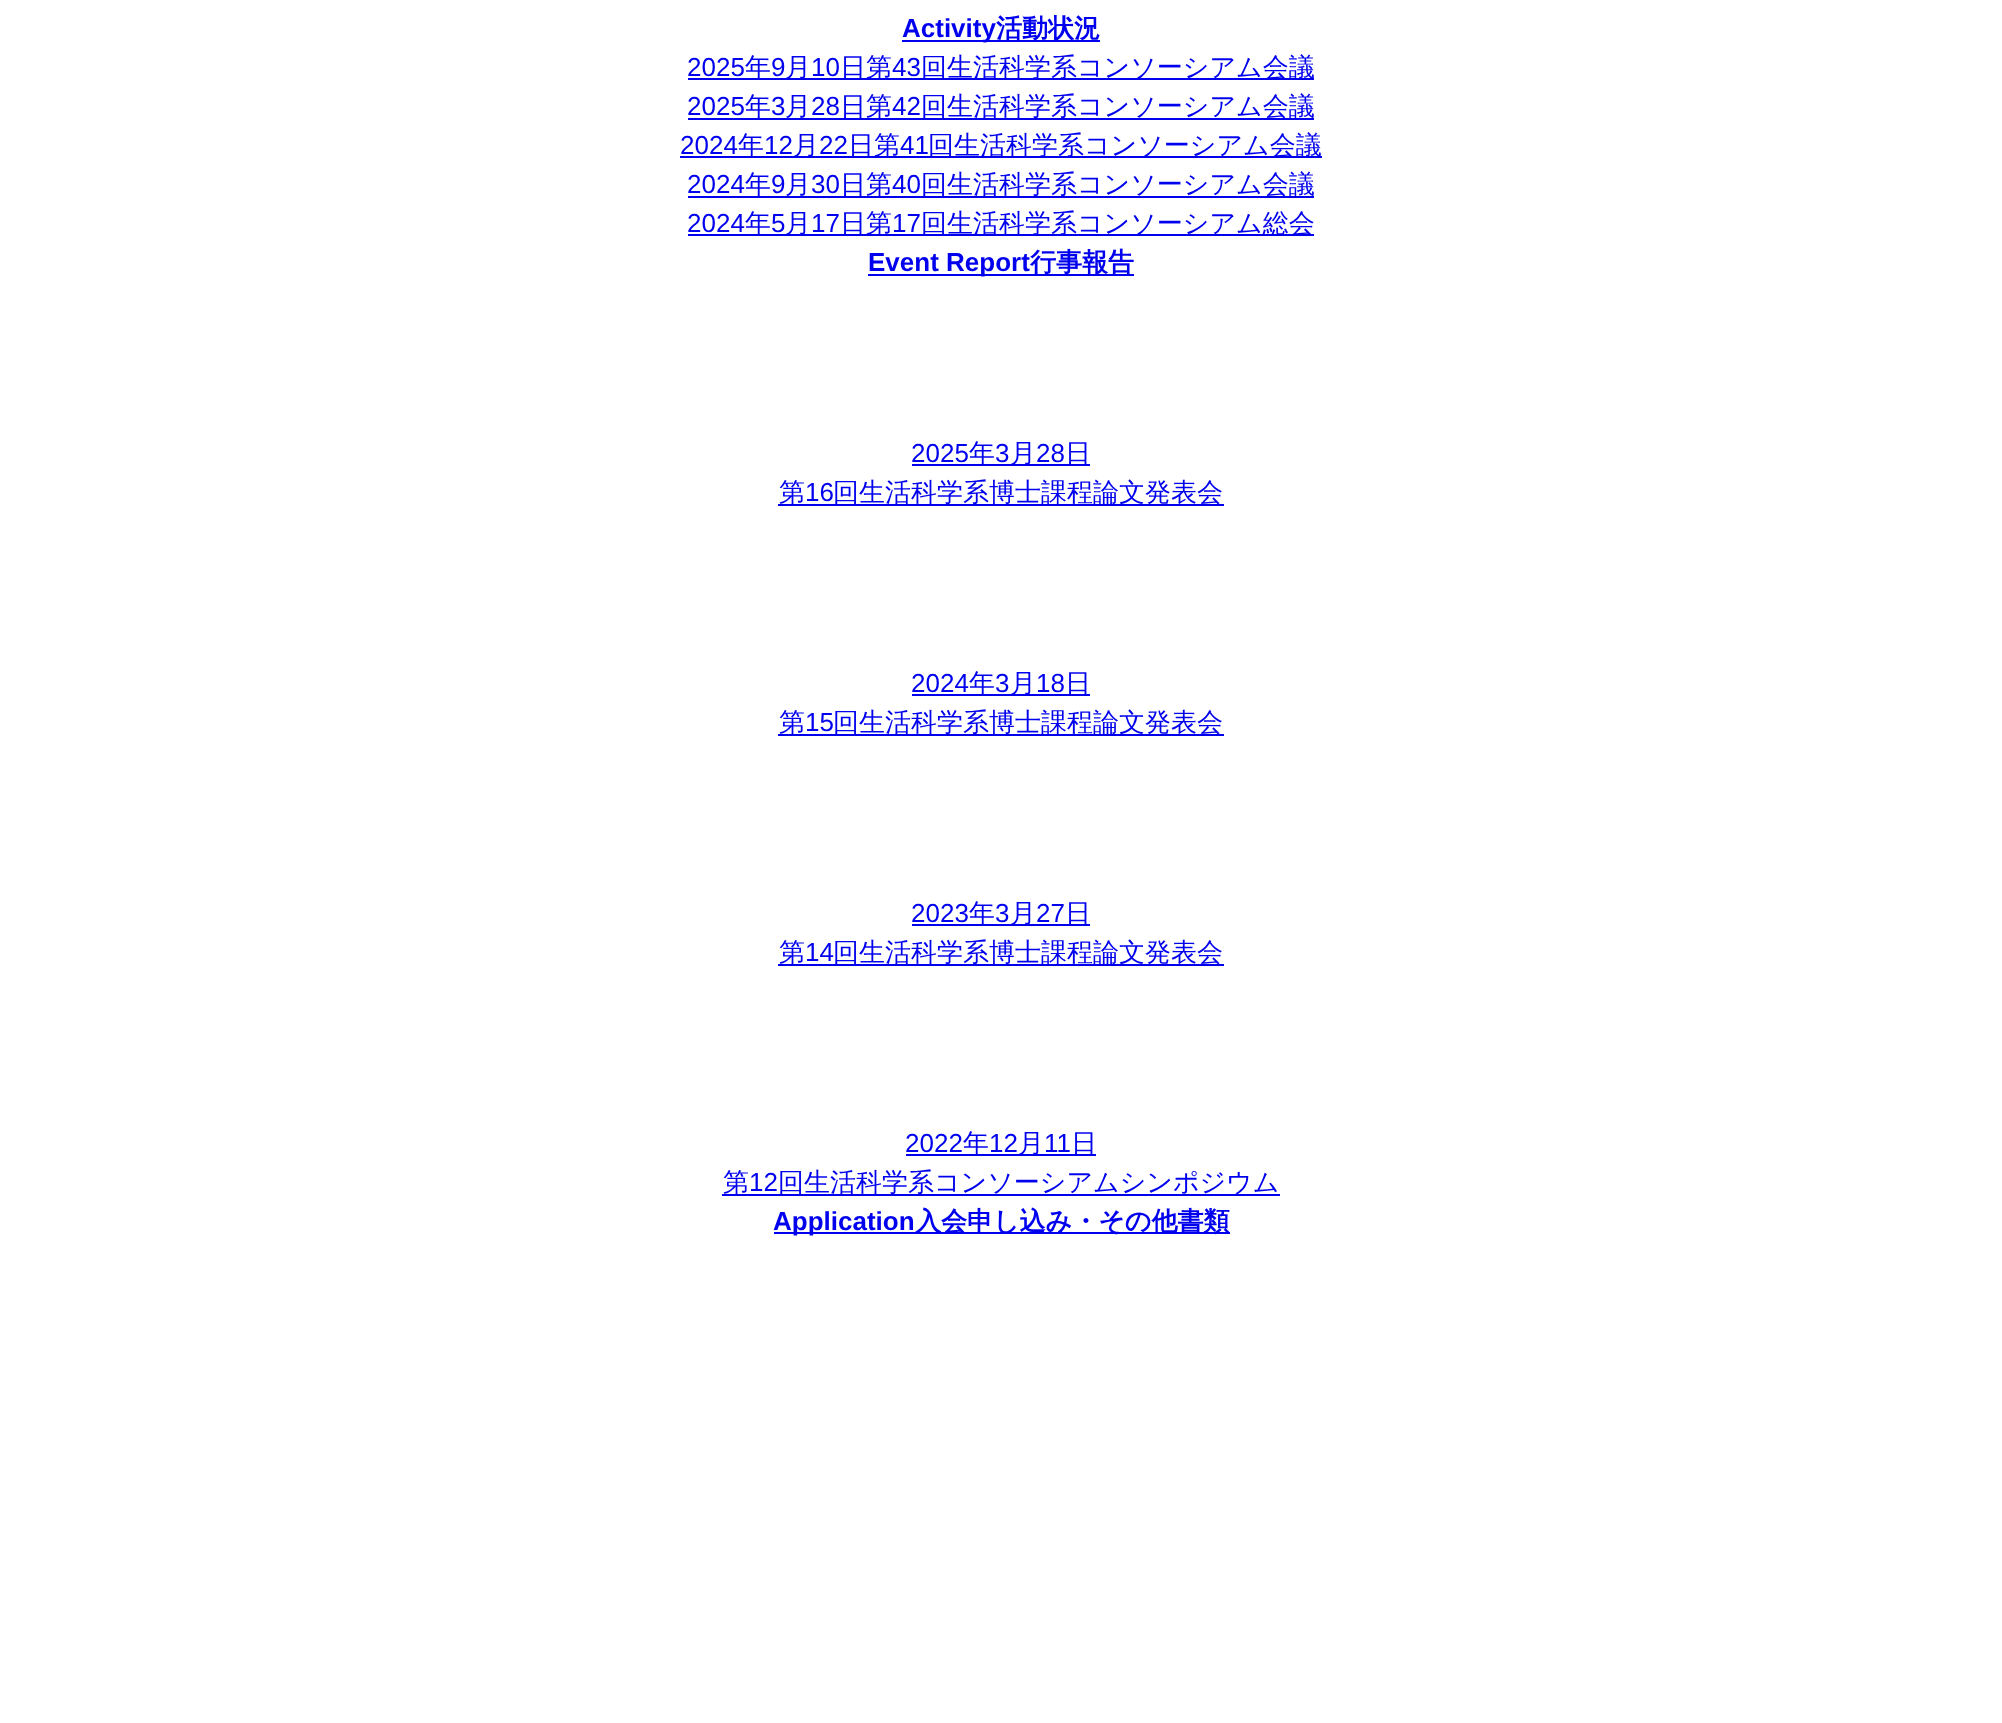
<!DOCTYPE html>
<meta charset="utf-8">
<style>body { margin: 0 } canvas { display: block }</style>
<canvas id="canvas" width="2002" height="1723"></canvas>
<script type="module">
  const canvas = document.getElementById("canvas");
  const g = canvas.getContext("2d");
  g.miterLimit = 4;
  g.fontKerning = "normal";
  function drawText(s, x, y, [font, color]) {
    g.font = font;
    g.fillStyle = color;
    g.fillText(s, x, y);
  }
  function fillBox(x, y, w, h, color) {
    g.fillStyle = color;
    g.fillRect(x, y, w, h);
  }

  const s1 = ["bold 26px Liberation Sans", "#0000EE"];
  const s2 = ["bold 26px WenQuanYi Zen Hei", "#0000EE"];
  const s3 = ["26px Liberation Sans", "#0000EE"];
  const s4 = ["500 26px WenQuanYi Zen Hei", "#0000EE"];

  fillBox(0, 0, 2002, 1723, "#FFFFFF");
  fillBox(902, 40, 198, 2, "#0000EE");
  drawText("Activity", 902, 37, s1);
  drawText("活動状況", 996, 37, s2);
  drawText("2025", 687, 76, s3);
  fillBox(688, 78, 626, 2, "#0000EE");
  drawText("年", 745, 76, s4);
  drawText("9", 771, 76, s3);
  drawText("月", 785, 76, s4);
  drawText("10", 811, 76, s3);
  drawText("日第", 840, 76, s4);
  drawText("43", 892, 76, s3);
  drawText("回生活科学系コンソーシアム会議", 921, 76, s4);
  drawText("2025", 687, 115, s3);
  fillBox(688, 118, 626, 2, "#0000EE");
  drawText("年", 745, 115, s4);
  drawText("3", 771, 115, s3);
  drawText("月", 785, 115, s4);
  drawText("28", 811, 115, s3);
  drawText("日第", 840, 115, s4);
  drawText("42", 892, 115, s3);
  drawText("回生活科学系コンソーシアム会議", 921, 115, s4);
  drawText("2024", 680, 154, s3);
  fillBox(680, 156, 642, 2, "#0000EE");
  drawText("年", 738, 154, s4);
  drawText("12", 764, 154, s3);
  drawText("月", 793, 154, s4);
  drawText("22", 819, 154, s3);
  drawText("日第", 848, 154, s4);
  drawText("41", 900, 154, s3);
  drawText("回生活科学系コンソーシアム会議", 928, 154, s4);
  drawText("2024", 687, 193, s3);
  fillBox(688, 196, 626, 2, "#0000EE");
  drawText("年", 745, 193, s4);
  drawText("9", 771, 193, s3);
  drawText("月", 785, 193, s4);
  drawText("30", 811, 193, s3);
  drawText("日第", 840, 193, s4);
  drawText("40", 892, 193, s3);
  drawText("回生活科学系コンソーシアム会議", 921, 193, s4);
  drawText("2024", 687, 232, s3);
  fillBox(688, 234, 626, 2, "#0000EE");
  drawText("年", 745, 232, s4);
  drawText("5", 771, 232, s3);
  drawText("月", 785, 232, s4);
  drawText("17", 811, 232, s3);
  drawText("日第", 840, 232, s4);
  drawText("17", 892, 232, s3);
  drawText("回生活科学系コンソーシアム総会", 921, 232, s4);
  fillBox(868, 274, 266, 2, "#0000EE");
  drawText("Event Report", 868, 271, s1);
  drawText("行事報告", 1030, 271, s2);
  drawText("2025", 911, 462, s3);
  fillBox(912, 464, 178, 2, "#0000EE");
  drawText("年", 969, 462, s4);
  drawText("3", 995, 462, s3);
  drawText("月", 1010, 462, s4);
  drawText("28", 1036, 462, s3);
  drawText("日", 1065, 462, s4);
  fillBox(778, 504, 446, 2, "#0000EE");
  drawText("第", 779, 501, s4);
  drawText("16", 805, 501, s3);
  drawText("回生活科学系博士課程論文発表会", 833, 501, s4);
  drawText("2024", 911, 692, s3);
  fillBox(912, 694, 178, 2, "#0000EE");
  drawText("年", 969, 692, s4);
  drawText("3", 995, 692, s3);
  drawText("月", 1010, 692, s4);
  drawText("18", 1036, 692, s3);
  drawText("日", 1065, 692, s4);
  fillBox(778, 734, 446, 2, "#0000EE");
  drawText("第", 779, 731, s4);
  drawText("15", 805, 731, s3);
  drawText("回生活科学系博士課程論文発表会", 833, 731, s4);
  drawText("2023", 911, 922, s3);
  fillBox(912, 924, 178, 2, "#0000EE");
  drawText("年", 969, 922, s4);
  drawText("3", 995, 922, s3);
  drawText("月", 1010, 922, s4);
  drawText("27", 1036, 922, s3);
  drawText("日", 1065, 922, s4);
  fillBox(778, 964, 446, 2, "#0000EE");
  drawText("第", 779, 961, s4);
  drawText("14", 805, 961, s3);
  drawText("回生活科学系博士課程論文発表会", 833, 961, s4);
  drawText("2022", 905, 1152, s3);
  fillBox(906, 1154, 190, 2, "#0000EE");
  drawText("年", 963, 1152, s4);
  drawText("12", 989, 1152, s3);
  drawText("月", 1018, 1152, s4);
  drawText("11", 1044, 1152, s3);
  drawText("日", 1071, 1152, s4);
  fillBox(722, 1194, 558, 2, "#0000EE");
  drawText("第", 723, 1191, s4);
  drawText("12", 749, 1191, s3);
  drawText("回生活科学系コンソーシアムシンポジウム", 778, 1191, s4);
  fillBox(774, 1232, 456, 2, "#0000EE");
  drawText("Application", 773, 1230, s1);
  drawText("入会申し込み・その他書類", 915, 1230, s2);
</script>
